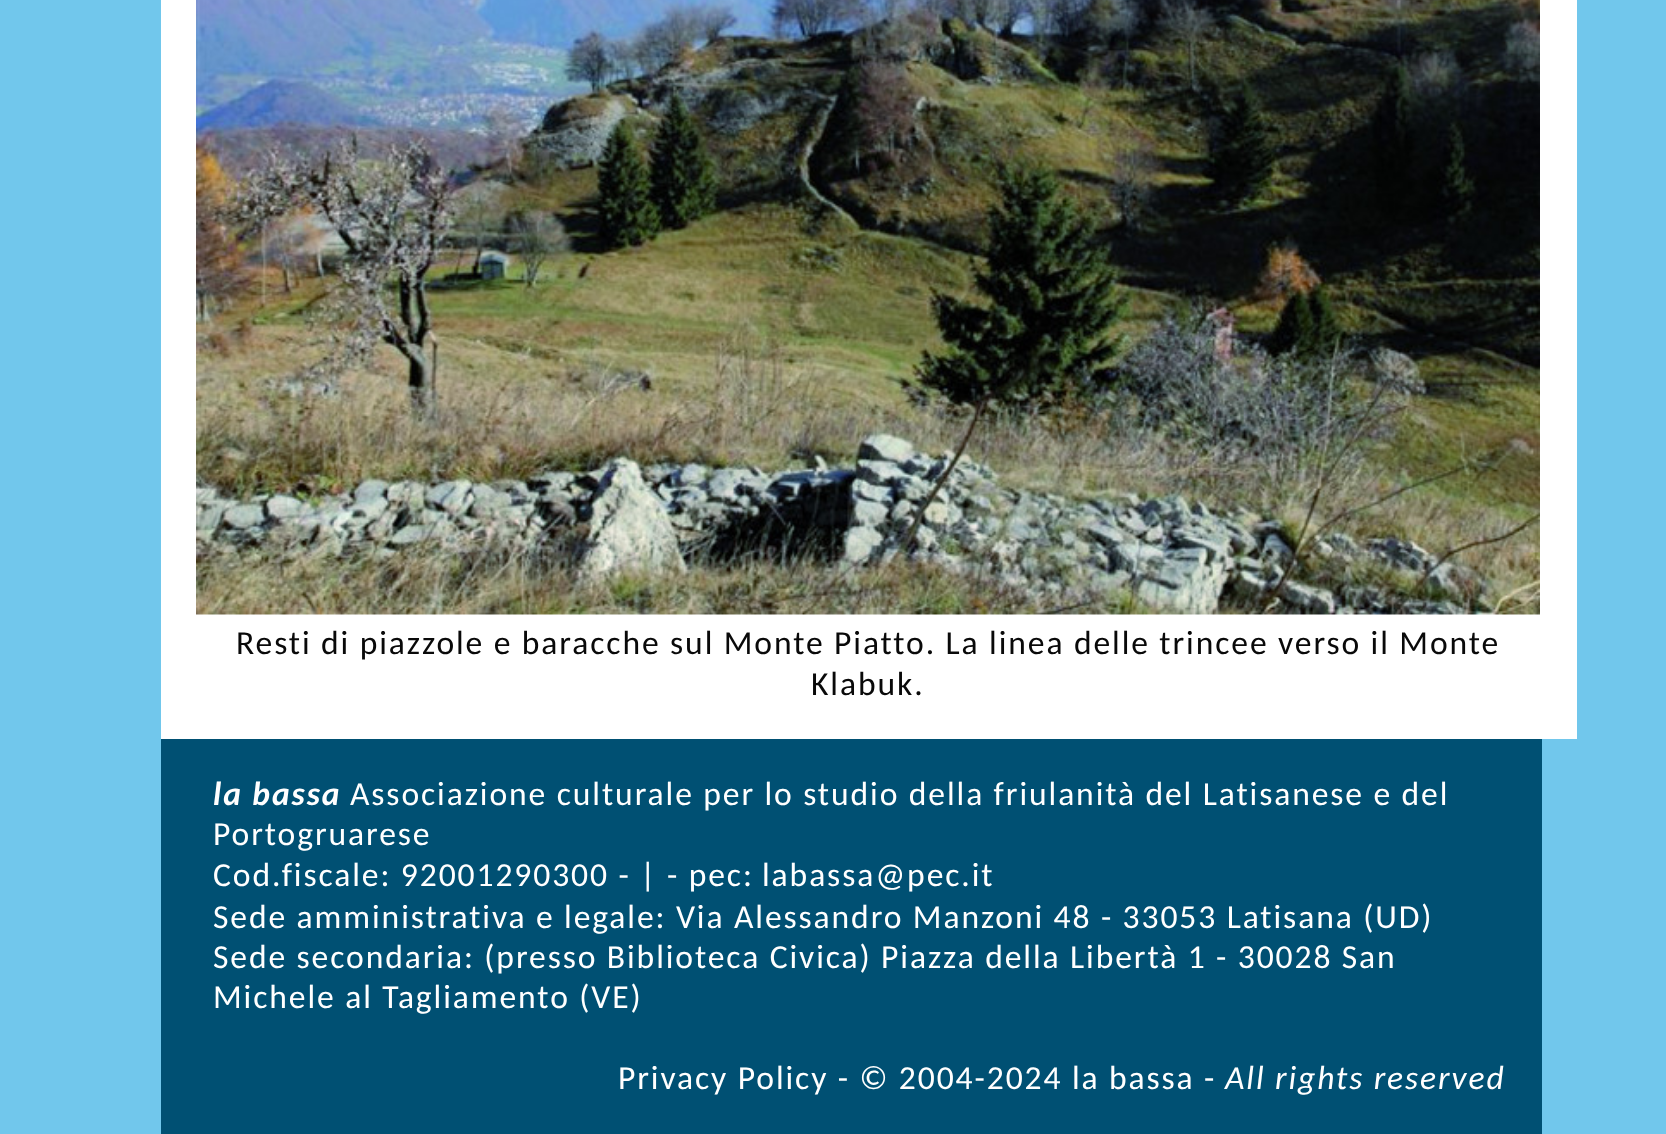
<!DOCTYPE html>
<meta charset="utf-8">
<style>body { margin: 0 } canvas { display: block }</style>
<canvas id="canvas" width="1666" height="1134"></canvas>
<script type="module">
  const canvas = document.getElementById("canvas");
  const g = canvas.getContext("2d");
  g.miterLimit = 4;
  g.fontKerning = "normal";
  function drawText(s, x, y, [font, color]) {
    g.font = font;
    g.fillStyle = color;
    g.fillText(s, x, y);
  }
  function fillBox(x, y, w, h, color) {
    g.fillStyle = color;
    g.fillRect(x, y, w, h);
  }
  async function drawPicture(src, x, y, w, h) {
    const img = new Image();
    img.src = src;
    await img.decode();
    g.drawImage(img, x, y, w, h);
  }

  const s1 = ["33.6px Carlito", "#090909"];
  const s2 = ["italic bold 33.6px Carlito", "#FFFFFF"];
  const s3 = ["33.6px Carlito", "#FFFFFF"];
  const s4 = ["italic 33.6px Carlito", "#FFFFFF"];

  fillBox(0, 0, 1666, 1134, "#71C7EC");
  fillBox(161, 0, 1416, 739, "#FFFFFF");
  await drawPicture("pic1.png", 196, 0, 1344, 615);
  g.letterSpacing = "1.9px";
  drawText("Resti di piazzole e baracche sul Monte Piatto. La linea delle trincee verso il Monte", 236, 654, s1);
  drawText("Klabuk.", 811, 695, s1);
  fillBox(161, 739, 1381, 395, "#005073");
  drawText("la bassa", 213, 805, s2);
  drawText("Associazione culturale per lo studio della friulanità del Latisanese e del", 350, 805, s3);
  drawText("Portogruarese", 213, 845, s3);
  drawText("Cod.fiscale: 92001290300 - | - pec:", 213, 886, s3);
  drawText("labassa@pec.it", 762, 886, s3);
  drawText("Sede amministrativa e legale: Via Alessandro Manzoni 48 - 33053 Latisana (UD)", 213, 928, s3);
  drawText("Sede secondaria: (presso Biblioteca Civica) Piazza della Libertà 1 - 30028 San", 213, 968, s3);
  drawText("Michele al Tagliamento (VE)", 213, 1008, s3);
  drawText("Privacy Policy - © 2004-2024 la bassa -", 618, 1089, s3);
  drawText("All rights reserved", 1225, 1089, s4);
</script>
